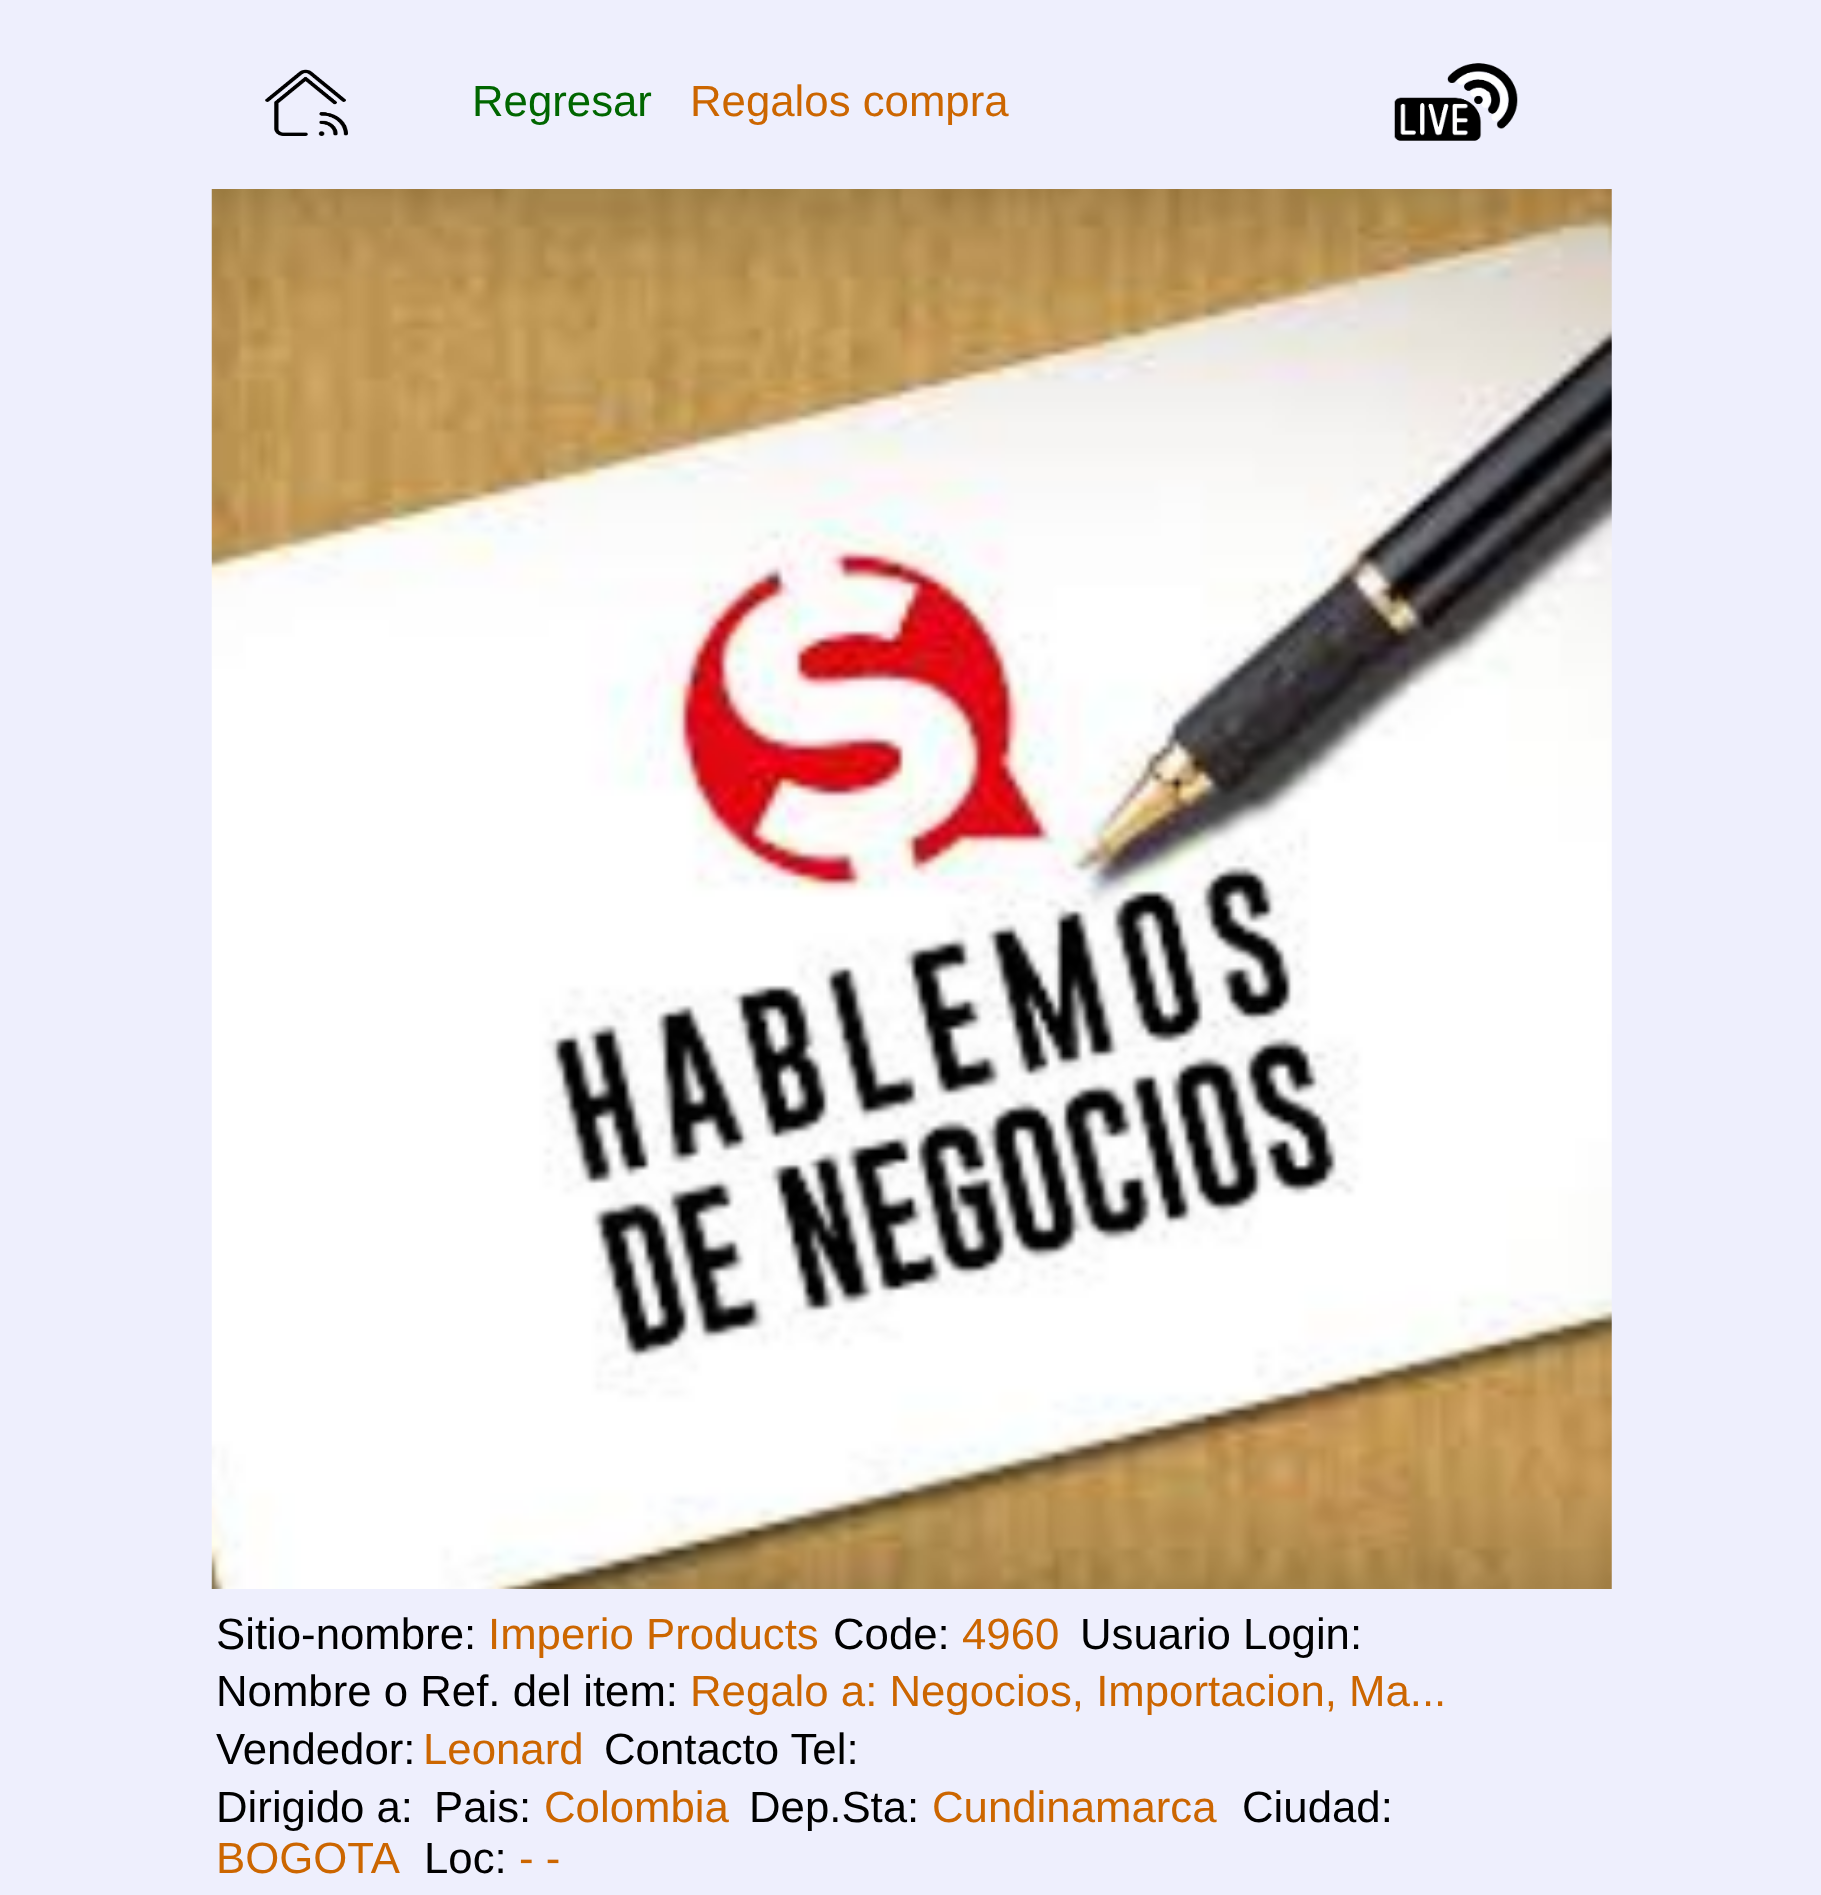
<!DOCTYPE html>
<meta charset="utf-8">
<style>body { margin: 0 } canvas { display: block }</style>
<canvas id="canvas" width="1821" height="1895"></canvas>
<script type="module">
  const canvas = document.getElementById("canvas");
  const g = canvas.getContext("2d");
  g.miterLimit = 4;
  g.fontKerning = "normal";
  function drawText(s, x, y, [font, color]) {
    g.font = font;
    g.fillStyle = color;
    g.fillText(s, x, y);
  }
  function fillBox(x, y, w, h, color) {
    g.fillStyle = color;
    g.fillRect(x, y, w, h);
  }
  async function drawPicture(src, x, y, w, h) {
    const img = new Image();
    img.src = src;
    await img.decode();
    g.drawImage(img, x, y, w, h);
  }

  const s1 = ["43.75px Liberation Sans", "#006600"];
  const s2 = ["43.75px Liberation Sans", "#CC6600"];
  const s3 = ["43.75px Liberation Sans", "#000000"];

  fillBox(0, 0, 1821, 1895, "#EEEFFD");
  await drawPicture("pic1.png", 265, 69, 83, 67);
  drawText("Regresar", 472, 116, s1);
  drawText("Regalos compra", 690, 116, s2);
  await drawPicture("pic2.png", 1394, 63, 124, 78);
  await drawPicture("pic3.png", 211, 189, 1401, 1400);
  drawText("Sitio-nombre:", 216, 1649, s3);
  drawText("Imperio Products", 488, 1649, s2);
  drawText("Code:", 833, 1649, s3);
  drawText("4960", 962, 1649, s2);
  drawText("Usuario Login:", 1080, 1649, s3);
  drawText("Nombre o Ref. del item:", 216, 1706, s3);
  drawText("Regalo a: Negocios, Importacion, Ma...", 690, 1706, s2);
  drawText("Vendedor:", 216, 1764, s3);
  drawText("Leonard", 423, 1764, s2);
  drawText("Contacto Tel:", 604, 1764, s3);
  drawText("Dirigido a:", 216, 1822, s3);
  drawText("Pais:", 434, 1822, s3);
  drawText("Colombia", 544, 1822, s2);
  drawText("Dep.Sta:", 749, 1822, s3);
  drawText("Cundinamarca", 932, 1822, s2);
  drawText("Ciudad:", 1242, 1822, s3);
  drawText("BOGOTA", 216, 1873, s2);
  drawText("Loc:", 424, 1873, s3);
  drawText("- -", 519, 1873, s2);
</script>
